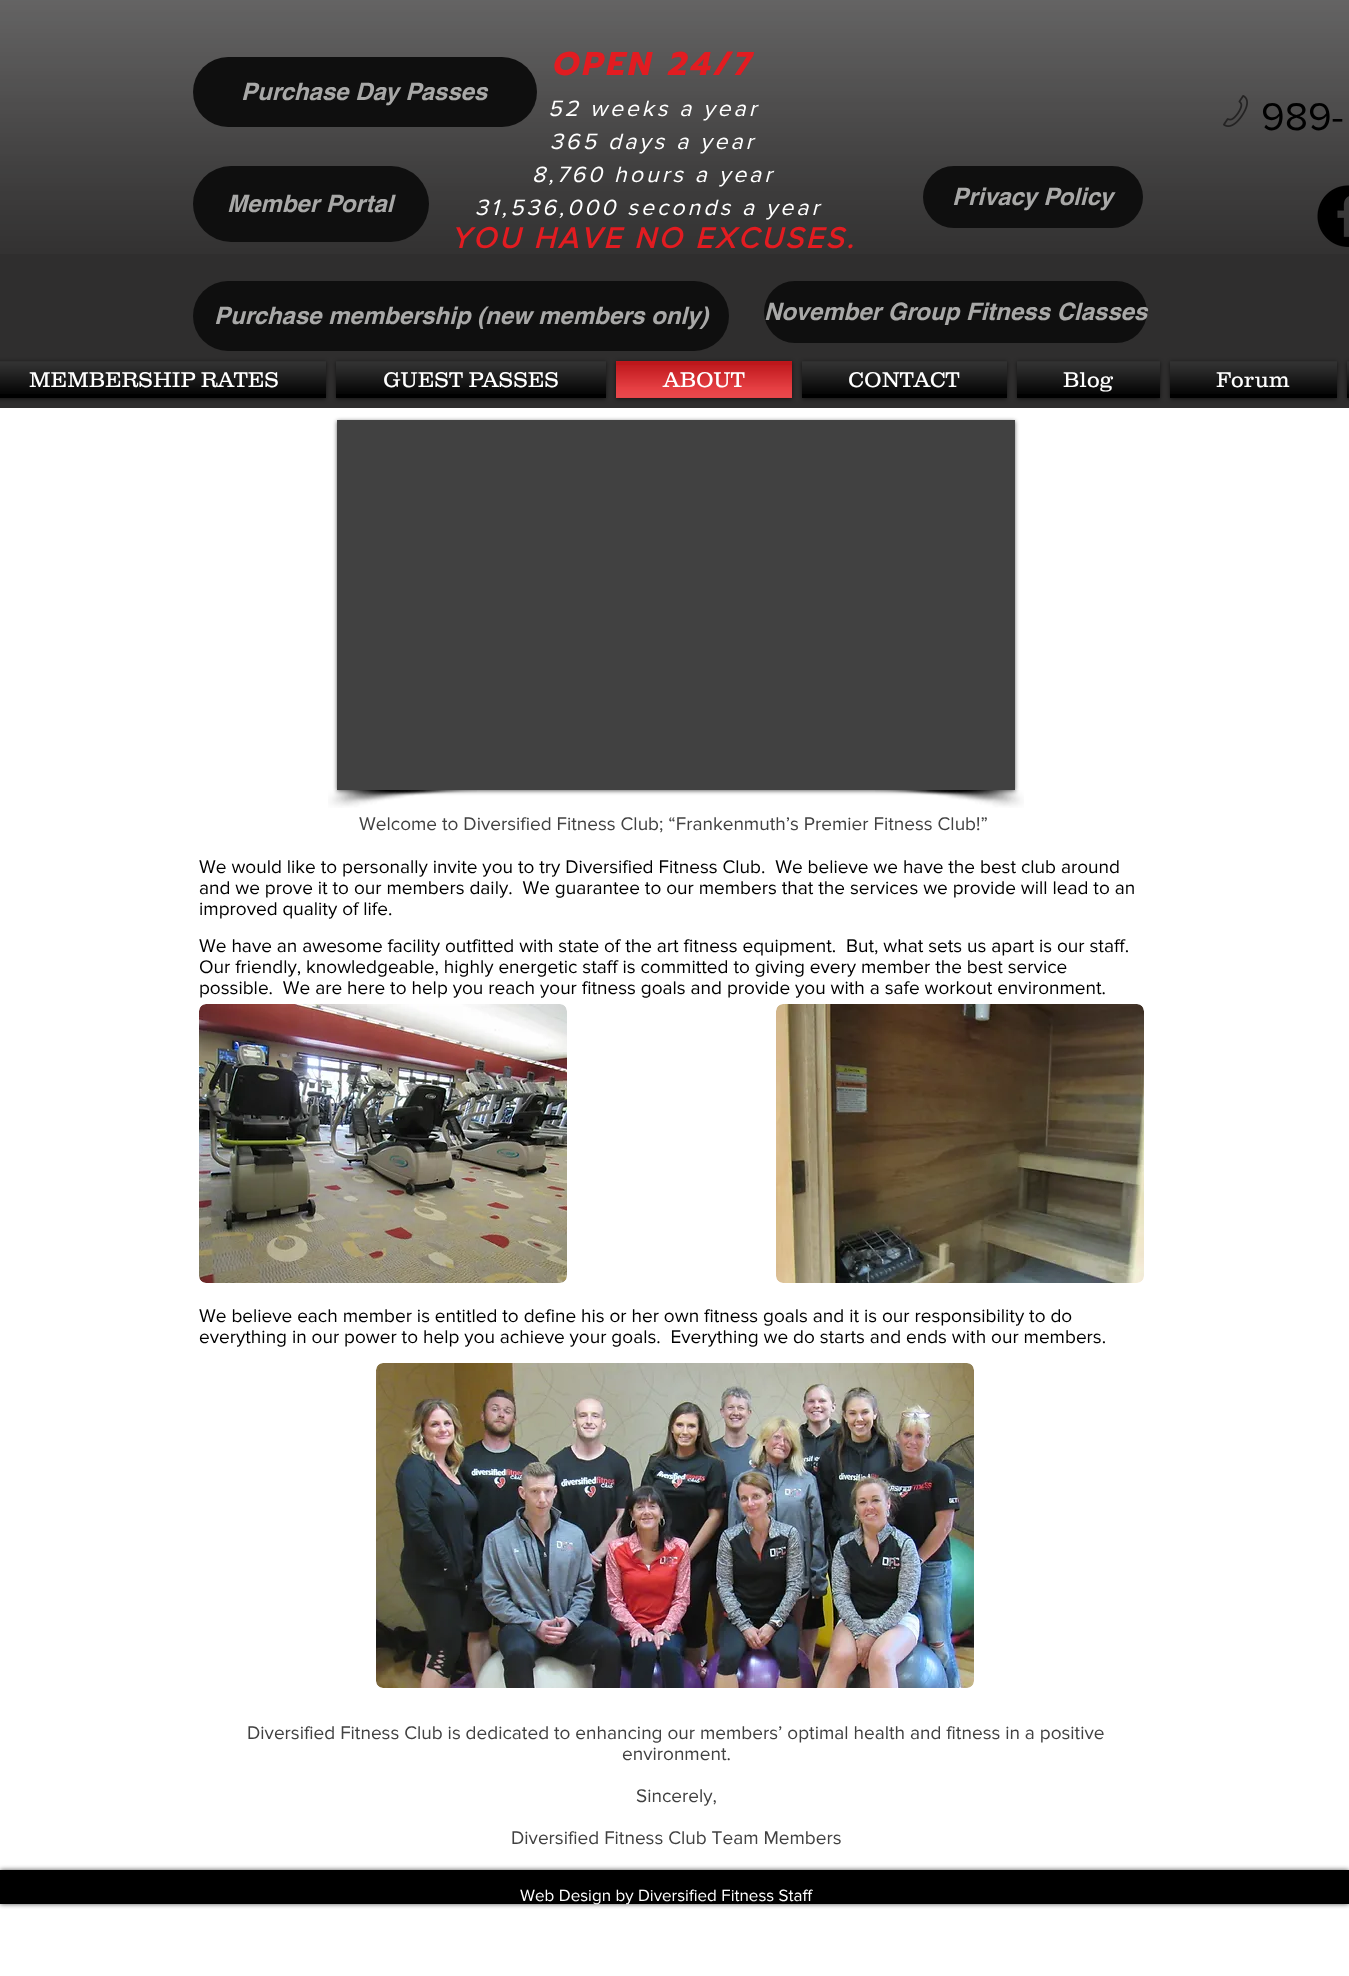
<!DOCTYPE html>
<meta charset="utf-8">
<style>body { margin: 0 } canvas { display: block }</style>
<canvas id="canvas" width="1349" height="1976"></canvas>
<script type="module">
  const canvas = document.getElementById("canvas");
  const g = canvas.getContext("2d");
  g.miterLimit = 4;
  g.fontKerning = "normal";
  function drawText(s, x, y, [font, color]) {
    g.font = font;
    g.fillStyle = color;
    g.fillText(s, x, y);
  }
  function fillBox(x, y, w, h, color) {
    g.fillStyle = color;
    g.fillRect(x, y, w, h);
  }
  function fillRounded(x, y, w, h, r, color) {
    g.fillStyle = color;
    g.beginPath();
    g.roundRect(x, y, w, h, r);
    g.fill();
  }
  async function drawPicture(src, x, y, w, h) {
    const img = new Image();
    img.src = src;
    await img.decode();
    g.drawImage(img, x, y, w, h);
  }

  const s1 = ["italic bold 24px helvetica", "#A8A8A7"];
  const s2 = ["italic bold 33px Prompt", "#E21C21"];
  const s3 = ["italic 23px 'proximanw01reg'", "#FFFFFF"];
  const s4 = ["italic bold 30px 'proximanw01reg'", "#E21C21"];
  const s5 = ["40px 'proximanw01reg'", "#000000"];
  const s6 = ["300 22px 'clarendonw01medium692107'", "#FFFFFF"];
  const s7 = ["19px 'proximanw01reg'", "#414141"];
  const s8 = ["19px 'proximanw01reg'", "#000000"];
  const s9 = ["17px 'proximanw01reg'", "#FFFFFF"];

  fillBox(0, 0, 1349, 1976, "#FFFFFF");
  fillBox(0, 0, 1349, 408, "#2F2E2E");
  await drawPicture("pic1.png", 0, 0, 1349, 254);
  fillRounded(193, 57, 344, 70, 35, "#0F0F0F");
  drawText("Purchase Day Passes", 241, 100, s1);
  g.letterSpacing = "3px";
  drawText("OPEN 24/7", 553, 75, s2);
  drawText("52 weeks a year", 548, 116, s3);
  drawText("365 days a year", 550, 149, s3);
  drawText("8,760 hours a year", 532, 182, s3);
  drawText("31,536,000 seconds a year", 475, 215, s3);
  drawText("YOU HAVE NO EXCUSES.", 451, 248, s4);
  await drawPicture("pic2.png", 1223, 95, 25, 32);
  g.letterSpacing = "0px";
  drawText("989-", 1261, 130, s5);
  fillRounded(193, 166, 236, 76, 38, "#0F0F0F");
  drawText("Member Portal", 227, 212, s1);
  fillRounded(923, 166, 220, 62, 31, "#0F0F0F");
  drawText("Privacy Policy", 952, 205, s1);
  await drawPicture("pic3.png", 1317, 185, 32, 62);
  fillRounded(193, 281, 536, 70, 35, "#0F0F0F");
  drawText("Purchase membership (new members only)", 214, 324, s1);
  fillRounded(764, 281, 383, 62, 31, "#0F0F0F");
  drawText("November Group Fitness Classes", 764, 320, s1);
  g.fillStyle = "rgba(0, 0, 0, 0.6)";
  g.filter = "blur(2px)";
  g.beginPath();
  g.rect(-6, 362, 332, 37);
  g.fill();
  g.filter = "none";
  fillBox(0, 361, 326, 37, "#000000");
  await drawPicture("pic4.png", 0, 361, 326, 33);
  drawText("MEMBERSHIP RATES", 29, 387, s6);
  g.fillStyle = "rgba(0, 0, 0, 0.6)";
  g.filter = "blur(2px)";
  g.beginPath();
  g.rect(336, 362, 270, 37);
  g.fill();
  g.filter = "none";
  fillBox(336, 361, 270, 37, "#000000");
  await drawPicture("pic5.png", 336, 361, 270, 33);
  drawText("GUEST PASSES", 383, 387, s6);
  g.fillStyle = "rgba(0, 0, 0, 0.6)";
  g.filter = "blur(2px)";
  g.beginPath();
  g.rect(616, 362, 176, 37);
  g.fill();
  g.filter = "none";
  fillBox(616, 361, 176, 37, "#E21C21");
  await drawPicture("pic6.png", 616, 361, 176, 26);
  await drawPicture("pic7.png", 616, 365, 176, 33);
  drawText("ABOUT", 663, 387, s6);
  g.fillStyle = "rgba(0, 0, 0, 0.6)";
  g.filter = "blur(2px)";
  g.beginPath();
  g.rect(802, 362, 205, 37);
  g.fill();
  g.filter = "none";
  fillBox(802, 361, 205, 37, "#000000");
  await drawPicture("pic8.png", 802, 361, 205, 33);
  drawText("CONTACT", 848, 387, s6);
  g.fillStyle = "rgba(0, 0, 0, 0.6)";
  g.filter = "blur(2px)";
  g.beginPath();
  g.rect(1017, 362, 143, 37);
  g.fill();
  g.filter = "none";
  fillBox(1017, 361, 143, 37, "#000000");
  await drawPicture("pic9.png", 1017, 361, 143, 33);
  drawText("Blog", 1063, 387, s6);
  g.fillStyle = "rgba(0, 0, 0, 0.6)";
  g.filter = "blur(2px)";
  g.beginPath();
  g.rect(1170, 362, 167, 37);
  g.fill();
  g.filter = "none";
  fillBox(1170, 361, 167, 37, "#000000");
  await drawPicture("pic10.png", 1170, 361, 167, 33);
  drawText("Forum", 1216, 387, s6);
  g.fillStyle = "rgba(0, 0, 0, 0.6)";
  g.filter = "blur(2px)";
  g.beginPath();
  g.rect(1347, 362, 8, 37);
  g.fill();
  g.filter = "none";
  fillBox(1347, 361, 2, 37, "#000000");
  await drawPicture("pic11.png", 1347, 361, 2, 33);
  g.fillStyle = "rgba(0, 0, 0, 0.6)";
  g.filter = "blur(2px)";
  g.beginPath();
  g.rect(337, 421, 678, 370);
  g.fill();
  g.filter = "none";
  fillBox(337, 420, 678, 370, "#414141");
  await drawPicture("pic12.png", 328, 790, 149, 18);
  await drawPicture("pic13.png", 875, 790, 149, 18);
  drawText("Welcome to Diversified Fitness Club; “Frankenmuth’s Premier Fitness Club!”", 359, 830, s7);
  drawText("We would like to personally invite you to try Diversified Fitness Club.  We believe we have the best club around", 199, 873, s8);
  drawText("and we prove it to our members daily.  We guarantee to our members that the services we provide will lead to an", 199, 894, s8);
  drawText("improved quality of life.", 199, 915, s8);
  drawText("We have an awesome facility outfitted with state of the art fitness equipment.  But, what sets us apart is our staff.", 199, 952, s8);
  drawText("Our friendly, knowledgeable, highly energetic staff is committed to giving every member the best service", 199, 973, s8);
  drawText("possible.  We are here to help you reach your fitness goals and provide you with a safe workout environment.", 199, 994, s8);
  await drawPicture("pic14.png", 199, 1004, 368, 279);
  await drawPicture("pic15.png", 776, 1004, 368, 279);
  drawText("We believe each member is entitled to define his or her own fitness goals and it is our responsibility to do", 199, 1322, s8);
  drawText("everything in our power to help you achieve your goals.  Everything we do starts and ends with our members.", 199, 1343, s8);
  await drawPicture("pic16.png", 376, 1363, 598, 325);
  drawText("Diversified Fitness Club is dedicated to enhancing our members’ optimal health and fitness in a positive", 247, 1739, s7);
  drawText("environment.", 622, 1760, s7);
  drawText("Sincerely,", 636, 1802, s7);
  drawText("Diversified Fitness Club Team Members", 511, 1844, s7);
  g.fillStyle = "rgba(0, 0, 0, 0.7)";
  g.filter = "blur(2.5px)";
  g.beginPath();
  g.rect(0, 1870, 1349, 34);
  g.fill();
  g.filter = "none";
  fillBox(0, 1870, 1349, 34, "#000000");
  drawText("Web Design by Diversified Fitness Staff", 520, 1901, s9);
</script>
